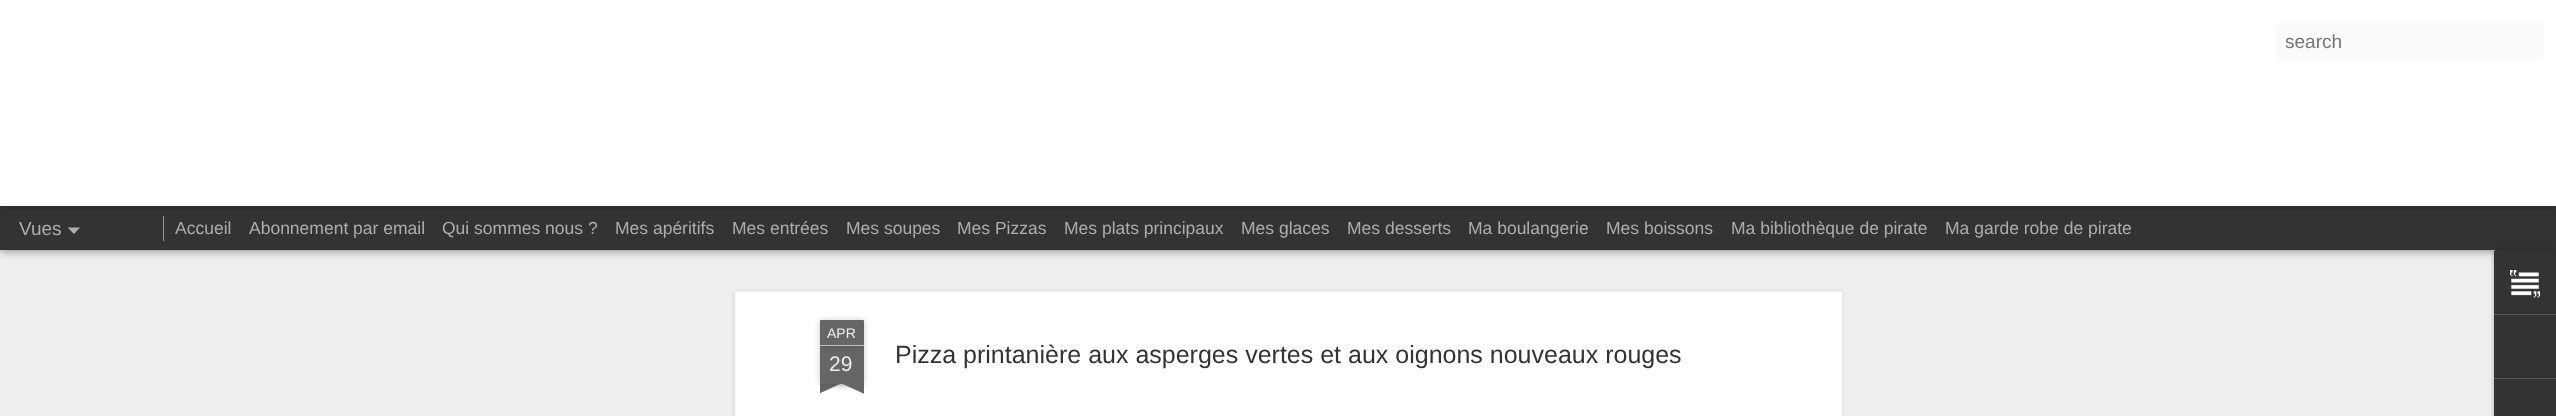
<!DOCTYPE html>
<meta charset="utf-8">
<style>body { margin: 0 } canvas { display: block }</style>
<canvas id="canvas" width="2556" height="416"></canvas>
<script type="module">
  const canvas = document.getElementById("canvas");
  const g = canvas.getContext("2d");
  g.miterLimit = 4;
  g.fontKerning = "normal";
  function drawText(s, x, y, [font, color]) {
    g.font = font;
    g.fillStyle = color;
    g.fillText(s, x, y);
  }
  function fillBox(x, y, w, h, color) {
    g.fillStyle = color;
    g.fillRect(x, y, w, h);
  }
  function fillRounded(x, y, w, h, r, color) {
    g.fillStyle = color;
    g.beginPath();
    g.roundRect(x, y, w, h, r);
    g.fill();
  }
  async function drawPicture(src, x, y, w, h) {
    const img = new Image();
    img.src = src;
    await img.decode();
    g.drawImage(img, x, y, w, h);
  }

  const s1 = ["19px Liberation Sans", "#757575"];
  const s2 = ["19px Liberation Sans", "#ADADAD"];
  const s3 = ["17.5px Liberation Sans", "#ADADAD"];
  const s4 = ["14px Liberation Sans", "#EEEEEE"];
  const s5 = ["21px Liberation Sans", "#EEEEEE"];
  const s6 = ["25px Liberation Sans", "#333333"];

  fillBox(0, 0, 2556, 416, "#EEEEEE");
  g.fillStyle = "rgba(0, 0, 0, 0.5)";
  g.filter = "blur(5px)";
  g.beginPath();
  g.rect(0, 206, 2556, 44);
  g.fill();
  g.filter = "none";
  fillBox(0, 206, 2556, 44, "#333333");
  g.fillStyle = "rgba(0, 0, 0, 0.3)";
  g.filter = "blur(3px)";
  g.beginPath();
  g.rect(0, 0, 2556, 206);
  g.fill();
  g.filter = "none";
  fillBox(0, 0, 2556, 206, "#FFFFFF");
  fillRounded(2276, 23, 268, 37, 4, "#FAFAFA");
  drawText("search", 2285, 48, s1);
  drawText("Vues", 19, 235, s2);
  g.beginPath();
  g.moveTo(67.5, 227.5);
  g.lineTo(80, 227.5);
  g.lineTo(74, 234);
  g.closePath();
  g.fill();
  fillBox(163, 216, 1, 25, "#999999");
  drawText("Accueil", 175, 234, s3);
  drawText("Abonnement par email", 249, 234, s3);
  drawText("Qui sommes nous ?", 442, 234, s3);
  drawText("Mes apéritifs", 615, 234, s3);
  drawText("Mes entrées", 732, 234, s3);
  drawText("Mes soupes", 846, 234, s3);
  drawText("Mes Pizzas", 957, 234, s3);
  drawText("Mes plats principaux", 1064, 234, s3);
  drawText("Mes glaces", 1241, 234, s3);
  drawText("Mes desserts", 1347, 234, s3);
  drawText("Ma boulangerie", 1468, 234, s3);
  drawText("Mes boissons", 1606, 234, s3);
  drawText("Ma bibliothèque de pirate", 1731, 234, s3);
  drawText("Ma garde robe de pirate", 1945, 234, s3);
  fillBox(733, 289, 1112, 127, "#FFFFFF");
  await drawPicture("pic1.png", 732, 289, 1113, 127);
  g.fillStyle = "rgba(0, 0, 0, 0.2)";
  g.filter = "blur(3px)";
  g.beginPath();
  g.rect(820, 346, 44, 38);
  g.fill();
  g.filter = "none";
  fillBox(820, 346, 44, 38, "#666666");
  g.fillStyle = "rgba(0, 0, 0, 0.2)";
  g.filter = "blur(3px)";
  g.beginPath();
  g.roundRect(820, 320, 44, 26, 1);
  g.fill();
  g.filter = "none";
  g.fillStyle = "#666666";
  g.beginPath();
  g.roundRect(820, 320, 44, 26, [1, 1, 0, 0]);
  g.fill();
  fillBox(820, 345, 44, 1, "#C2C2C2");
  drawText("APR", 827, 338, s4);
  drawText("29", 829, 371, s5);
  g.save();
  g.beginPath();
  g.rect(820, 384, 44, 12);
  g.clip();
  g.fillStyle = "rgba(0, 0, 0, 0.2)";
  g.filter = "blur(3px)";
  g.beginPath();
  g.rect(809, 371, 62, 13);
  g.fill();
  g.filter = "none";
  g.restore();
  g.save();
  g.beginPath();
  g.rect(820, 384, 44, 12);
  g.clip();
  g.fillStyle = "#666666";
  g.beginPath();
  g.moveTo(808, 385);
  g.lineTo(865, 359);
  g.lineTo(870, 370);
  g.lineTo(814, 396);
  g.closePath();
  g.fill();
  g.restore();
  g.save();
  g.beginPath();
  g.rect(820, 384, 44, 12);
  g.clip();
  g.fillStyle = "rgba(0, 0, 0, 0.2)";
  g.filter = "blur(3px)";
  g.beginPath();
  g.rect(813, 371, 62, 13);
  g.fill();
  g.filter = "none";
  g.restore();
  g.save();
  g.beginPath();
  g.rect(820, 384, 44, 12);
  g.clip();
  g.fillStyle = "#666666";
  g.beginPath();
  g.moveTo(817, 359);
  g.lineTo(874, 385);
  g.lineTo(869, 396);
  g.lineTo(812, 370);
  g.closePath();
  g.fill();
  g.restore();
  drawText("Pizza printanière aux asperges vertes et aux oignons nouveaux rouges", 895, 363, s6);
  g.fillStyle = "rgba(0, 0, 0, 0.3)";
  g.filter = "blur(2px)";
  g.beginPath();
  g.roundRect(2494, 251, 62, 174, 2.5);
  g.fill();
  g.filter = "none";
  g.fillStyle = "#333333";
  g.beginPath();
  g.moveTo(2496.5, 250);
  g.lineTo(2556, 250);
  g.lineTo(2556, 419);
  g.lineTo(2496.5, 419);
  g.bezierCurveTo(2495, 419, 2494, 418, 2494, 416.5);
  g.lineTo(2494, 252.5);
  g.bezierCurveTo(2494, 251, 2495, 250, 2496.5, 250);
  g.closePath();
  g.fill();
  g.beginPath();
  g.roundRect(2494, 250, 62, 64, [2.5, 0, 0, 0]);
  g.fill();
  await drawPicture("pic2.png", 2510, 270, 30, 28);
  fillBox(2494, 314, 62, 1, "#585858");
  fillBox(2494, 378, 62, 1, "#585858");
</script>
